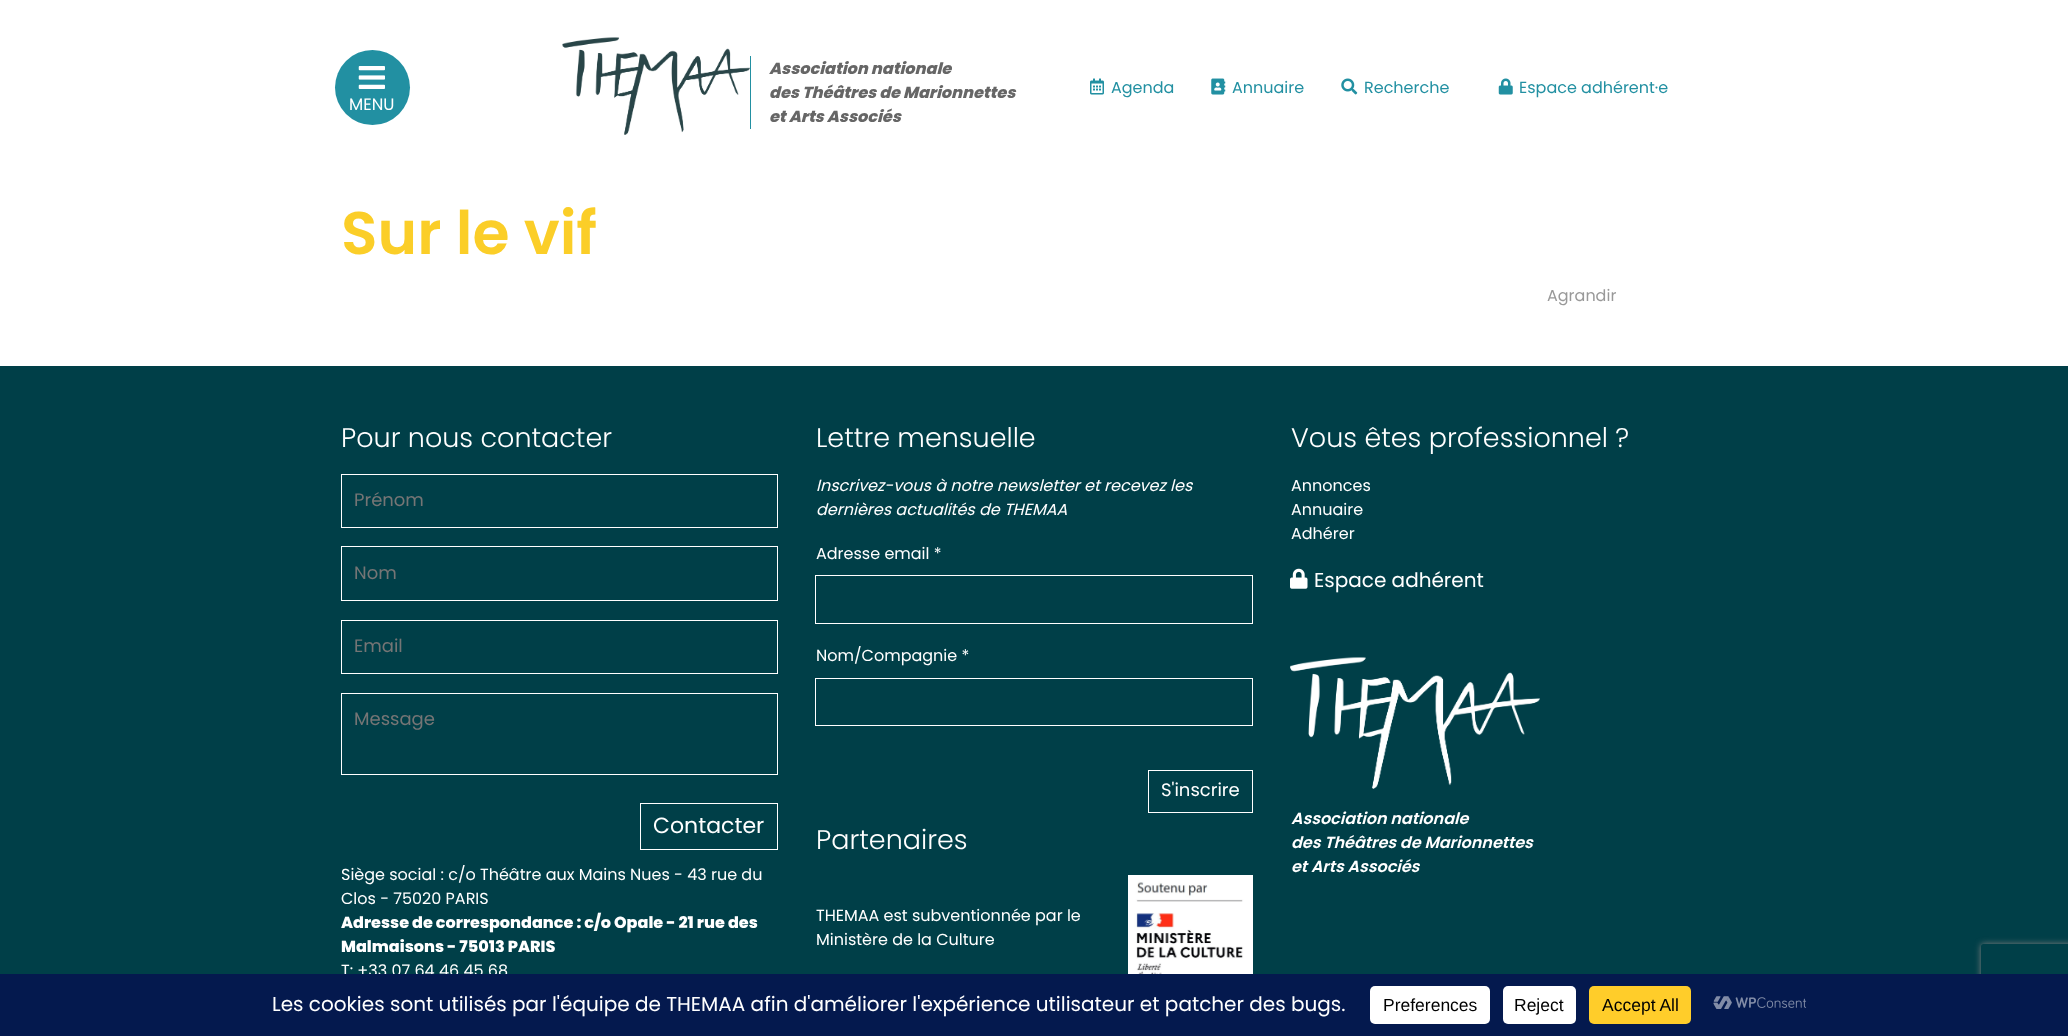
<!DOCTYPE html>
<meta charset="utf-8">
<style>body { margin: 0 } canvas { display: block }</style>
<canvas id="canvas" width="2068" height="1036"></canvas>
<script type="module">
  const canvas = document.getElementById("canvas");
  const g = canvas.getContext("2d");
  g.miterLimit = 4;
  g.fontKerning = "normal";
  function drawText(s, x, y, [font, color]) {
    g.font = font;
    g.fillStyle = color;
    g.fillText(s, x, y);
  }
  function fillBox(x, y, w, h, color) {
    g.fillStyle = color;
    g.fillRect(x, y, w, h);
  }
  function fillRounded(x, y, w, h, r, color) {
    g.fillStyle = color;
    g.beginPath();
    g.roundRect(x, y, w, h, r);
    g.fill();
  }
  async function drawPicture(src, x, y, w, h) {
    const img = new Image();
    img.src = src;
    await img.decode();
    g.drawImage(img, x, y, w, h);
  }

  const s1 = ["italic 800 16px Poppins", "#666666"];
  const s2 = ["16px Poppins", "#2290A2"];
  const s3 = ["16.5px Poppins", "#FFFFFF"];
  const s4 = ["600 60px Poppins", "#FBCE28"];
  const s5 = ["16px Poppins", "#999999"];
  const s6 = ["300 27px Poppins", "#FFFFFF"];
  const s7 = ["18px Poppins", "#757575"];
  const s8 = ["22px Poppins", "#FFFFFF"];
  const s9 = ["16px Poppins", "#FFFFFF"];
  const s10 = ["800 16px Poppins", "#FFFFFF"];
  const s11 = ["italic 16px Poppins", "#FFFFFF"];
  const s12 = ["18px Poppins", "#FFFFFF"];
  const s13 = ["20px Poppins", "#FFFFFF"];
  const s14 = ["italic 600 16px Poppins", "#FFFFFF"];
  const s15 = ["17.5px Liberation Sans", "#000000"];

  fillBox(0, 0, 2068, 1036, "#FFFFFF");
  await drawPicture("pic1.png", 562, 37, 188, 98);
  fillBox(750, 56, 1, 73, "#2290A2");
  drawText("Association nationale", 769, 74, s1);
  drawText("des Théâtres de Marionnettes", 769, 98, s1);
  drawText("et Arts Associés", 769, 122, s1);
  await drawPicture("pic2.png", 1090, 78, 14, 17);
  drawText("Agenda", 1111, 93, s2);
  await drawPicture("pic3.png", 1211, 78, 15, 17);
  drawText("Annuaire", 1232, 93, s2);
  await drawPicture("pic4.png", 1341, 78, 17, 17);
  drawText("Recherche", 1364, 93, s2);
  await drawPicture("pic5.png", 1498, 78, 15, 17);
  drawText("Espace adhérent·e", 1519, 93, s2);
  g.beginPath();
  g.arc(372.5, 87.5, 37.5, 0, Math.PI * 2);
  g.fill();
  await drawPicture("pic6.png", 358, 66, 27, 23);
  drawText("MENU", 349, 110, s3);
  drawText("Sur le vif", 341, 254, s4);
  drawText("Agrandir", 1547, 301, s5);
  fillBox(0, 366, 2068, 608, "#003F48");
  drawText("Pour nous contacter", 341, 447, s6);
  g.strokeStyle = "#FFFFFF";
  g.strokeRect(341.5, 474.5, 436, 53);
  drawText("Prénom", 354, 506, s7);
  g.strokeRect(341.5, 546.5, 436, 54);
  drawText("Nom", 354, 579, s7);
  g.strokeRect(341.5, 620.5, 436, 53);
  drawText("Email", 354, 652, s7);
  g.strokeRect(341.5, 693.5, 436, 81);
  drawText("Message", 354, 725, s7);
  g.strokeRect(640.5, 803.5, 137, 46);
  drawText("Contacter", 653, 833, s8);
  drawText("Siège social : c/o Théâtre aux Mains Nues - 43 rue du", 341, 880, s9);
  drawText("Clos - 75020 PARIS", 341, 904, s9);
  drawText("Adresse de correspondance : c/o Opale - 21 rue des", 341, 928, s10);
  drawText("Malmaisons - 75013 PARIS", 341, 952, s10);
  drawText("T: +33 07 64 46 45 68", 341, 976, s9);
  drawText("Lettre mensuelle", 816, 447, s6);
  drawText("Inscrivez-vous à notre newsletter et recevez les", 816, 491, s11);
  drawText("dernières actualités de THEMAA", 816, 515, s11);
  drawText("Adresse email *", 816, 559, s9);
  g.strokeRect(815.5, 575.5, 437, 48);
  drawText("Nom/Compagnie *", 816, 661, s9);
  g.strokeRect(815.5, 678.5, 437, 47);
  g.strokeRect(1148.5, 770.5, 104, 42);
  drawText("S'inscrire", 1161, 796, s12);
  drawText("Partenaires", 816, 849, s6);
  drawText("THEMAA est subventionnée par le", 816, 921, s9);
  drawText("Ministère de la Culture", 816, 945, s9);
  g.lineWidth = 3;
  g.strokeRect(1129.5, 876.5, 122, 122);
  await drawPicture("pic7.png", 1131, 878, 119, 96);
  drawText("Vous êtes professionnel ?", 1291, 447, s6);
  drawText("Annonces", 1291, 491, s9);
  drawText("Annuaire", 1291, 515, s9);
  drawText("Adhérer", 1291, 539, s9);
  await drawPicture("pic8.png", 1290, 568, 18, 21);
  drawText("Espace adhérent", 1314, 587, s13);
  await drawPicture("pic9.png", 1290, 657, 250, 132);
  drawText("Association nationale", 1291, 824, s14);
  drawText("des Théâtres de Marionnettes", 1291, 848, s14);
  drawText("et Arts Associés", 1291, 872, s14);
  g.save();
  g.beginPath();
  g.moveTo(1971, 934);
  g.lineTo(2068, 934);
  g.lineTo(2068, 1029);
  g.lineTo(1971, 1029);
  g.closePath();
  g.moveTo(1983.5, 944);
  g.lineTo(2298.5, 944);
  g.bezierCurveTo(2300, 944, 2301, 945, 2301, 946.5);
  g.lineTo(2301, 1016.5);
  g.bezierCurveTo(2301, 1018, 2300, 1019, 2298.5, 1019);
  g.lineTo(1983.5, 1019);
  g.bezierCurveTo(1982, 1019, 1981, 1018, 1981, 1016.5);
  g.lineTo(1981, 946.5);
  g.bezierCurveTo(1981, 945, 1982, 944, 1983.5, 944);
  g.closePath();
  g.clip("evenodd");
  g.fillStyle = "#808080";
  g.filter = "blur(3px)";
  g.beginPath();
  g.roundRect(1981, 944, 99, 75, 2.5);
  g.fill();
  g.filter = "none";
  g.restore();
  fillBox(0, 974, 2068, 62, "#04194E");
  drawText("Les cookies sont utilisés par l'équipe de THEMAA afin d'améliorer l'expérience utilisateur et patcher des bugs.", 272, 1011, s13);
  fillRounded(1370, 986, 120, 38, 5, "#FFFFFF");
  drawText("Preferences", 1383, 1011, s15);
  fillRounded(1503, 986, 73, 38, 5, "#FFFFFF");
  drawText("Reject", 1514, 1011, s15);
  fillRounded(1589, 986, 102, 38, 5, "#FFCD2A");
  drawText("Accept All", 1602, 1011, s15);
  await drawPicture("pic10.png", 1713, 996, 94, 13);
</script>
